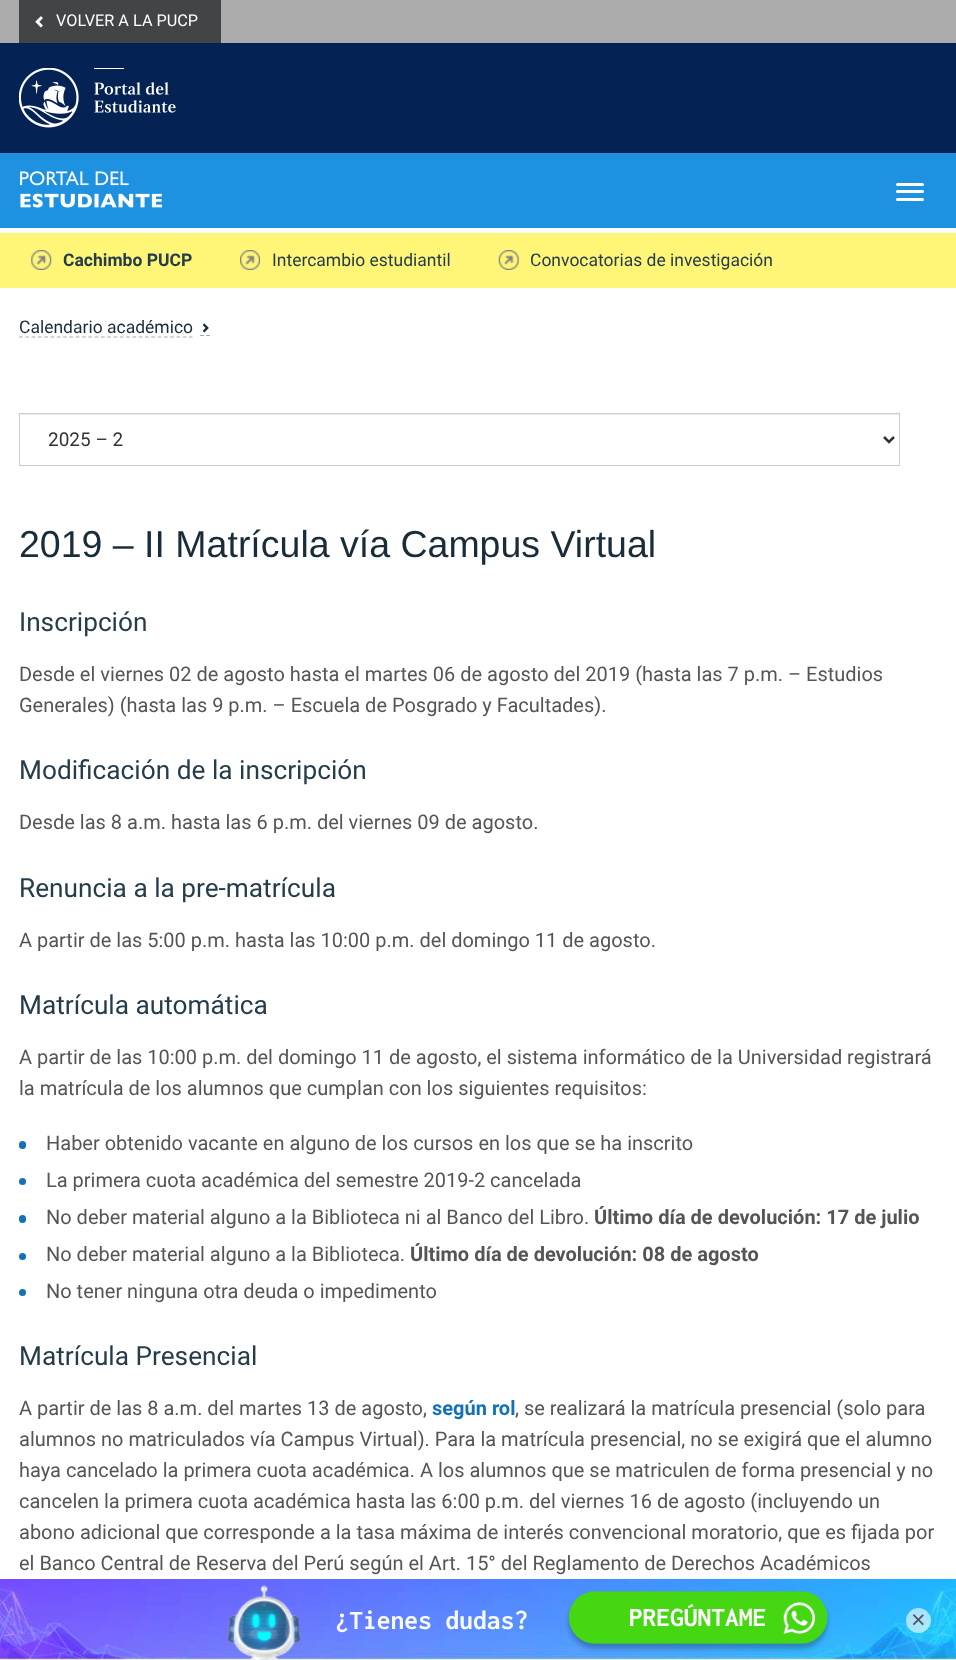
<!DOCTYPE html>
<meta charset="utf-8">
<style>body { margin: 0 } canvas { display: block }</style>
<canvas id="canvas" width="956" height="1660"></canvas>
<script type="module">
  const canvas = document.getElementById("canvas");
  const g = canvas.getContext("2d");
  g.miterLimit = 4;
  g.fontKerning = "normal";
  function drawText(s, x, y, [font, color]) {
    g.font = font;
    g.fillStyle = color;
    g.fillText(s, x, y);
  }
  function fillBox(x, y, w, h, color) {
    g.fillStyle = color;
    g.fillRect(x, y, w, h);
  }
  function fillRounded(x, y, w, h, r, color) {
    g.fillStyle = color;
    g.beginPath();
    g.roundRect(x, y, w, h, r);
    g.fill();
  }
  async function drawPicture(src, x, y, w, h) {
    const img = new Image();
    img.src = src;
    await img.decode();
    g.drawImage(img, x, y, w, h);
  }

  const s1 = ["16.25px Roboto", "#FFFFFF"];
  const s2 = ["bold 17.5px Roboto", "#253D4B"];
  const s3 = ["17.5px Roboto", "#253D4B"];
  const s4 = ["17.5px Roboto", "#182C39"];
  const s5 = ["19px Roboto", "#333333"];
  const s6 = ["37.5px Liberation Sans", "#182C39"];
  const s7 = ["26.25px Roboto", "#253D4B"];
  const s8 = ["20px Roboto", "#555555"];
  const s9 = ["bold 20px Roboto", "#555555"];
  const s10 = ["bold 20px Roboto", "#1471B6"];
  const s11 = ["25px Liberation Sans", "#555555"];

  fillBox(0, 0, 956, 1660, "#FFFFFF");
  fillBox(0, 0, 956, 43, "#ACACAC");
  fillBox(19, 0, 202, 43, "#414545");
  await drawPicture("pic1.png", 35, 16, 8, 12);
  drawText("VOLVER A LA PUCP", 56, 26, s1);
  fillBox(0, 43, 956, 110, "#042354");
  await drawPicture("pic2.png", 19, 68, 157, 60);
  fillBox(0, 153, 956, 75, "#1E92E0");
  await drawPicture("pic3.png", 20, 171, 143, 37);
  fillRounded(896, 183, 28, 3, 1.5, "#FFFFFF");
  fillRounded(896, 190, 28, 3, 1.5, "#FFFFFF");
  fillRounded(896, 198, 28, 3, 1.5, "#FFFFFF");
  fillBox(0, 233, 956, 55, "#FFF678");
  await drawPicture("pic4.png", 31, 250, 21, 20);
  drawText("Cachimbo PUCP", 63, 266, s2);
  await drawPicture("pic5.png", 240, 250, 20, 20);
  drawText("Intercambio estudiantil", 272, 266, s3);
  await drawPicture("pic6.png", 498, 250, 21, 20);
  drawText("Convocatorias de investigación", 530, 266, s3);
  g.beginPath();
  g.moveTo(19, 337);
  g.lineTo(192.5, 337);
  g.strokeStyle = "#A3ABB0";
  g.lineWidth = 1.2;
  g.setLineDash([3.75, 2.55]);
  g.stroke();
  g.beginPath();
  g.moveTo(200, 335.5);
  g.lineTo(204, 335.5);
  g.moveTo(206, 335.5);
  g.lineTo(210, 335.5);
  g.setLineDash([]);
  g.stroke();
  drawText("Calendario académico", 19, 333, s4);
  await drawPicture("pic7.png", 202, 323, 7, 10);
  fillBox(20, 414, 879, 1, "#ECECEC");
  g.strokeStyle = "#CCCCCC";
  g.lineWidth = 1;
  g.strokeRect(19.5, 413.5, 880, 52);
  g.beginPath();
  g.moveTo(884, 437);
  g.lineTo(889, 442);
  g.lineTo(894, 437);
  g.strokeStyle = "#333333";
  g.lineWidth = 2.5;
  g.stroke();
  drawText("2025 – 2", 48, 446, s5);
  drawText("2019 – II Matrícula vía Campus Virtual", 19, 557, s6);
  drawText("Inscripción", 19, 631, s7);
  drawText("Desde el viernes 02 de agosto hasta el martes 06 de agosto del 2019 (hasta las 7 p.m. – Estudios", 19, 681, s8);
  drawText("Generales) (hasta las 9 p.m. – Escuela de Posgrado y Facultades).", 19, 712, s8);
  drawText("Modificación de la inscripción", 19, 779, s7);
  drawText("Desde las 8 a.m. hasta las 6 p.m. del viernes 09 de agosto.", 19, 829, s8);
  drawText("Renuncia a la pre-matrícula", 19, 897, s7);
  drawText("A partir de las 5:00 p.m. hasta las 10:00 p.m. del domingo 11 de agosto.", 19, 947, s8);
  drawText("Matrícula automática", 19, 1014, s7);
  drawText("A partir de las 10:00 p.m. del domingo 11 de agosto, el sistema informático de la Universidad registrará", 19, 1064, s8);
  drawText("la matrícula de los alumnos que cumplan con los siguientes requisitos:", 19, 1095, s8);
  fillRounded(19, 1141, 7, 8, 3.5, "#1371B6");
  drawText("Haber obtenido vacante en alguno de los cursos en los que se ha inscrito", 46, 1150, s8);
  g.fillStyle = "#1371B6";
  g.beginPath();
  g.arc(22.5, 1181.5, 3.5, 0, Math.PI * 2);
  g.fill();
  drawText("La primera cuota académica del semestre 2019-2 cancelada", 46, 1187, s8);
  fillRounded(19, 1215, 7, 8, 3.5, "#1371B6");
  drawText("No deber material alguno a la Biblioteca ni al Banco del Libro.", 46, 1224, s8);
  drawText("Último día de devolución: 17 de julio", 594, 1224, s9);
  g.fillStyle = "#1371B6";
  g.beginPath();
  g.arc(22.5, 1256.5, 3.5, 0, Math.PI * 2);
  g.fill();
  drawText("No deber material alguno a la Biblioteca.", 46, 1261, s8);
  drawText("Último día de devolución: 08 de agosto", 410, 1261, s9);
  g.fillStyle = "#1371B6";
  g.beginPath();
  g.arc(22.5, 1292.5, 3.5, 0, Math.PI * 2);
  g.fill();
  drawText("No tener ninguna otra deuda o impedimento", 46, 1298, s8);
  drawText("Matrícula Presencial", 19, 1365, s7);
  drawText("A partir de las 8 a.m. del martes 13 de agosto,", 19, 1415, s8);
  drawText("según rol", 432, 1415, s10);
  drawText(", se realizará la matrícula presencial (solo para", 515, 1415, s8);
  drawText("alumnos no matriculados vía Campus Virtual). Para la matrícula presencial, no se exigirá que el alumno", 19, 1446, s8);
  drawText("haya cancelado la primera cuota académica. A los alumnos que se matriculen de forma presencial y no", 19, 1477, s8);
  drawText("cancelen la primera cuota académica hasta las 6:00 p.m. del viernes 16 de agosto (incluyendo un", 19, 1508, s8);
  drawText("abono adicional que corresponde a la tasa máxima de interés convencional moratorio, que es fijada por", 19, 1539, s8);
  drawText("el Banco Central de Reserva del Perú según el Art. 15° del Reglamento de Derechos Académicos", 19, 1570, s8);
  await drawPicture("pic8.png", 0, 1579, 956, 81);
  g.fillStyle = "rgba(255, 255, 255, 0.6)";
  g.beginPath();
  g.arc(918.5, 1620.5, 12.5, 0, Math.PI * 2);
  g.fill();
  drawText("×", 911, 1628, s11);
</script>
